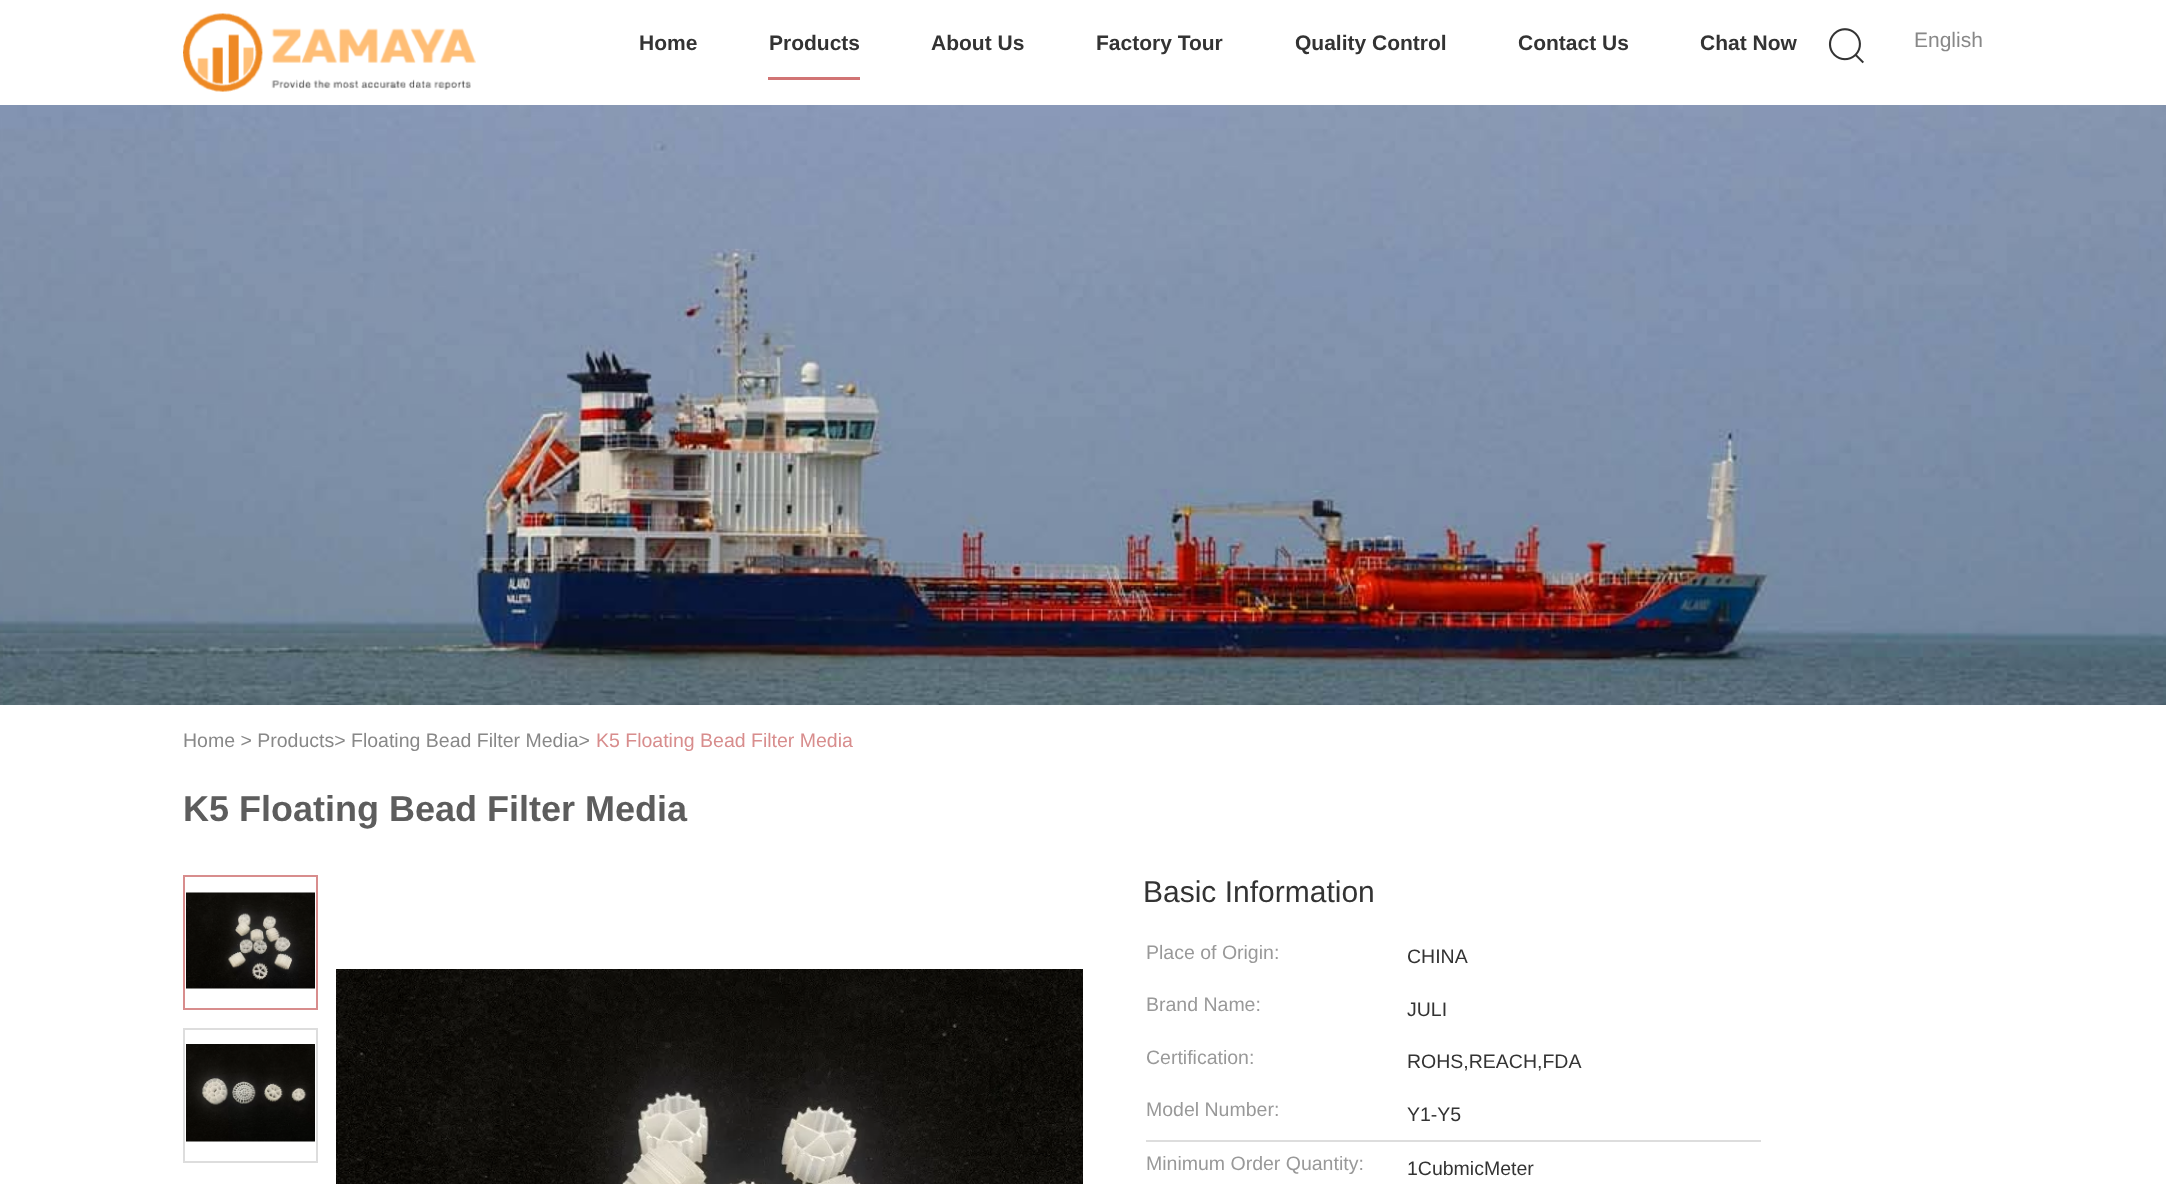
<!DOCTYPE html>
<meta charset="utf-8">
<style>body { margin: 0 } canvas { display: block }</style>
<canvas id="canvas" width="2166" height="1184"></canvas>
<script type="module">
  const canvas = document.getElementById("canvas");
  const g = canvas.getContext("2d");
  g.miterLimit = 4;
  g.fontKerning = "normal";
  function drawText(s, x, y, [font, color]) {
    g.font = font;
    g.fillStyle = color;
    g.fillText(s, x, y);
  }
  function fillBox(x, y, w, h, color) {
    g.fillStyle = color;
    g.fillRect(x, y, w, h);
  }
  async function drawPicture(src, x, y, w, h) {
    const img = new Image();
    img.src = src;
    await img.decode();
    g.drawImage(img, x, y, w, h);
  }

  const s1 = ["bold 21px Liberation Sans", "#333333"];
  const s2 = ["21px Liberation Sans", "#888888"];
  const s3 = ["19.5px Liberation Sans", "#888888"];
  const s4 = ["19.5px Liberation Sans", "#D88D8D"];
  const s5 = ["bold 36px Liberation Sans", "#5D5D5D"];
  const s6 = ["30px Liberation Sans", "#333333"];
  const s7 = ["19.5px Liberation Sans", "#999999"];
  const s8 = ["19.5px Liberation Sans", "#333333"];

  fillBox(0, 0, 2166, 1184, "#FFFFFF");
  await drawPicture("pic1.png", 183, 13, 293, 79);
  drawText("Home", 639, 50, s1);
  fillBox(768, 77, 92, 3, "#D17474");
  drawText("Products", 769, 50, s1);
  drawText("About Us", 931, 50, s1);
  drawText("Factory Tour", 1096, 50, s1);
  drawText("Quality Control", 1295, 50, s1);
  drawText("Contact Us", 1518, 50, s1);
  drawText("Chat Now", 1700, 50, s1);
  await drawPicture("pic2.png", 1828, 28, 36, 36);
  drawText("English", 1914, 47, s2);
  await drawPicture("pic3.png", 0, 105, 2166, 600);
  drawText("Home > Products> Floating Bead Filter Media>", 183, 747, s3);
  drawText("K5 Floating Bead Filter Media", 596, 747, s4);
  drawText("K5 Floating Bead Filter Media", 183, 821, s5);
  g.strokeStyle = "#D88D8D";
  g.lineWidth = 2;
  g.strokeRect(184, 876, 133, 133);
  await drawPicture("pic4.png", 186, 892, 129, 97);
  g.strokeStyle = "#DDDDDD";
  g.strokeRect(184, 1029, 133, 133);
  await drawPicture("pic5.png", 186, 1044, 129, 98);
  await drawPicture("pic6.png", 336, 969, 747, 215);
  drawText("Basic Information", 1143, 902, s6);
  drawText("Place of Origin:", 1146, 959, s7);
  drawText("CHINA", 1407, 963, s8);
  drawText("Brand Name:", 1146, 1011, s7);
  drawText("JULI", 1407, 1016, s8);
  drawText("Certification:", 1146, 1064, s7);
  drawText("ROHS,REACH,FDA", 1407, 1068, s8);
  drawText("Model Number:", 1146, 1116, s7);
  drawText("Y1-Y5", 1407, 1121, s8);
  fillBox(1146, 1140, 615, 2, "#DDDDDD");
  drawText("Minimum Order Quantity:", 1146, 1170, s7);
  drawText("1CubmicMeter", 1407, 1175, s8);
</script>
